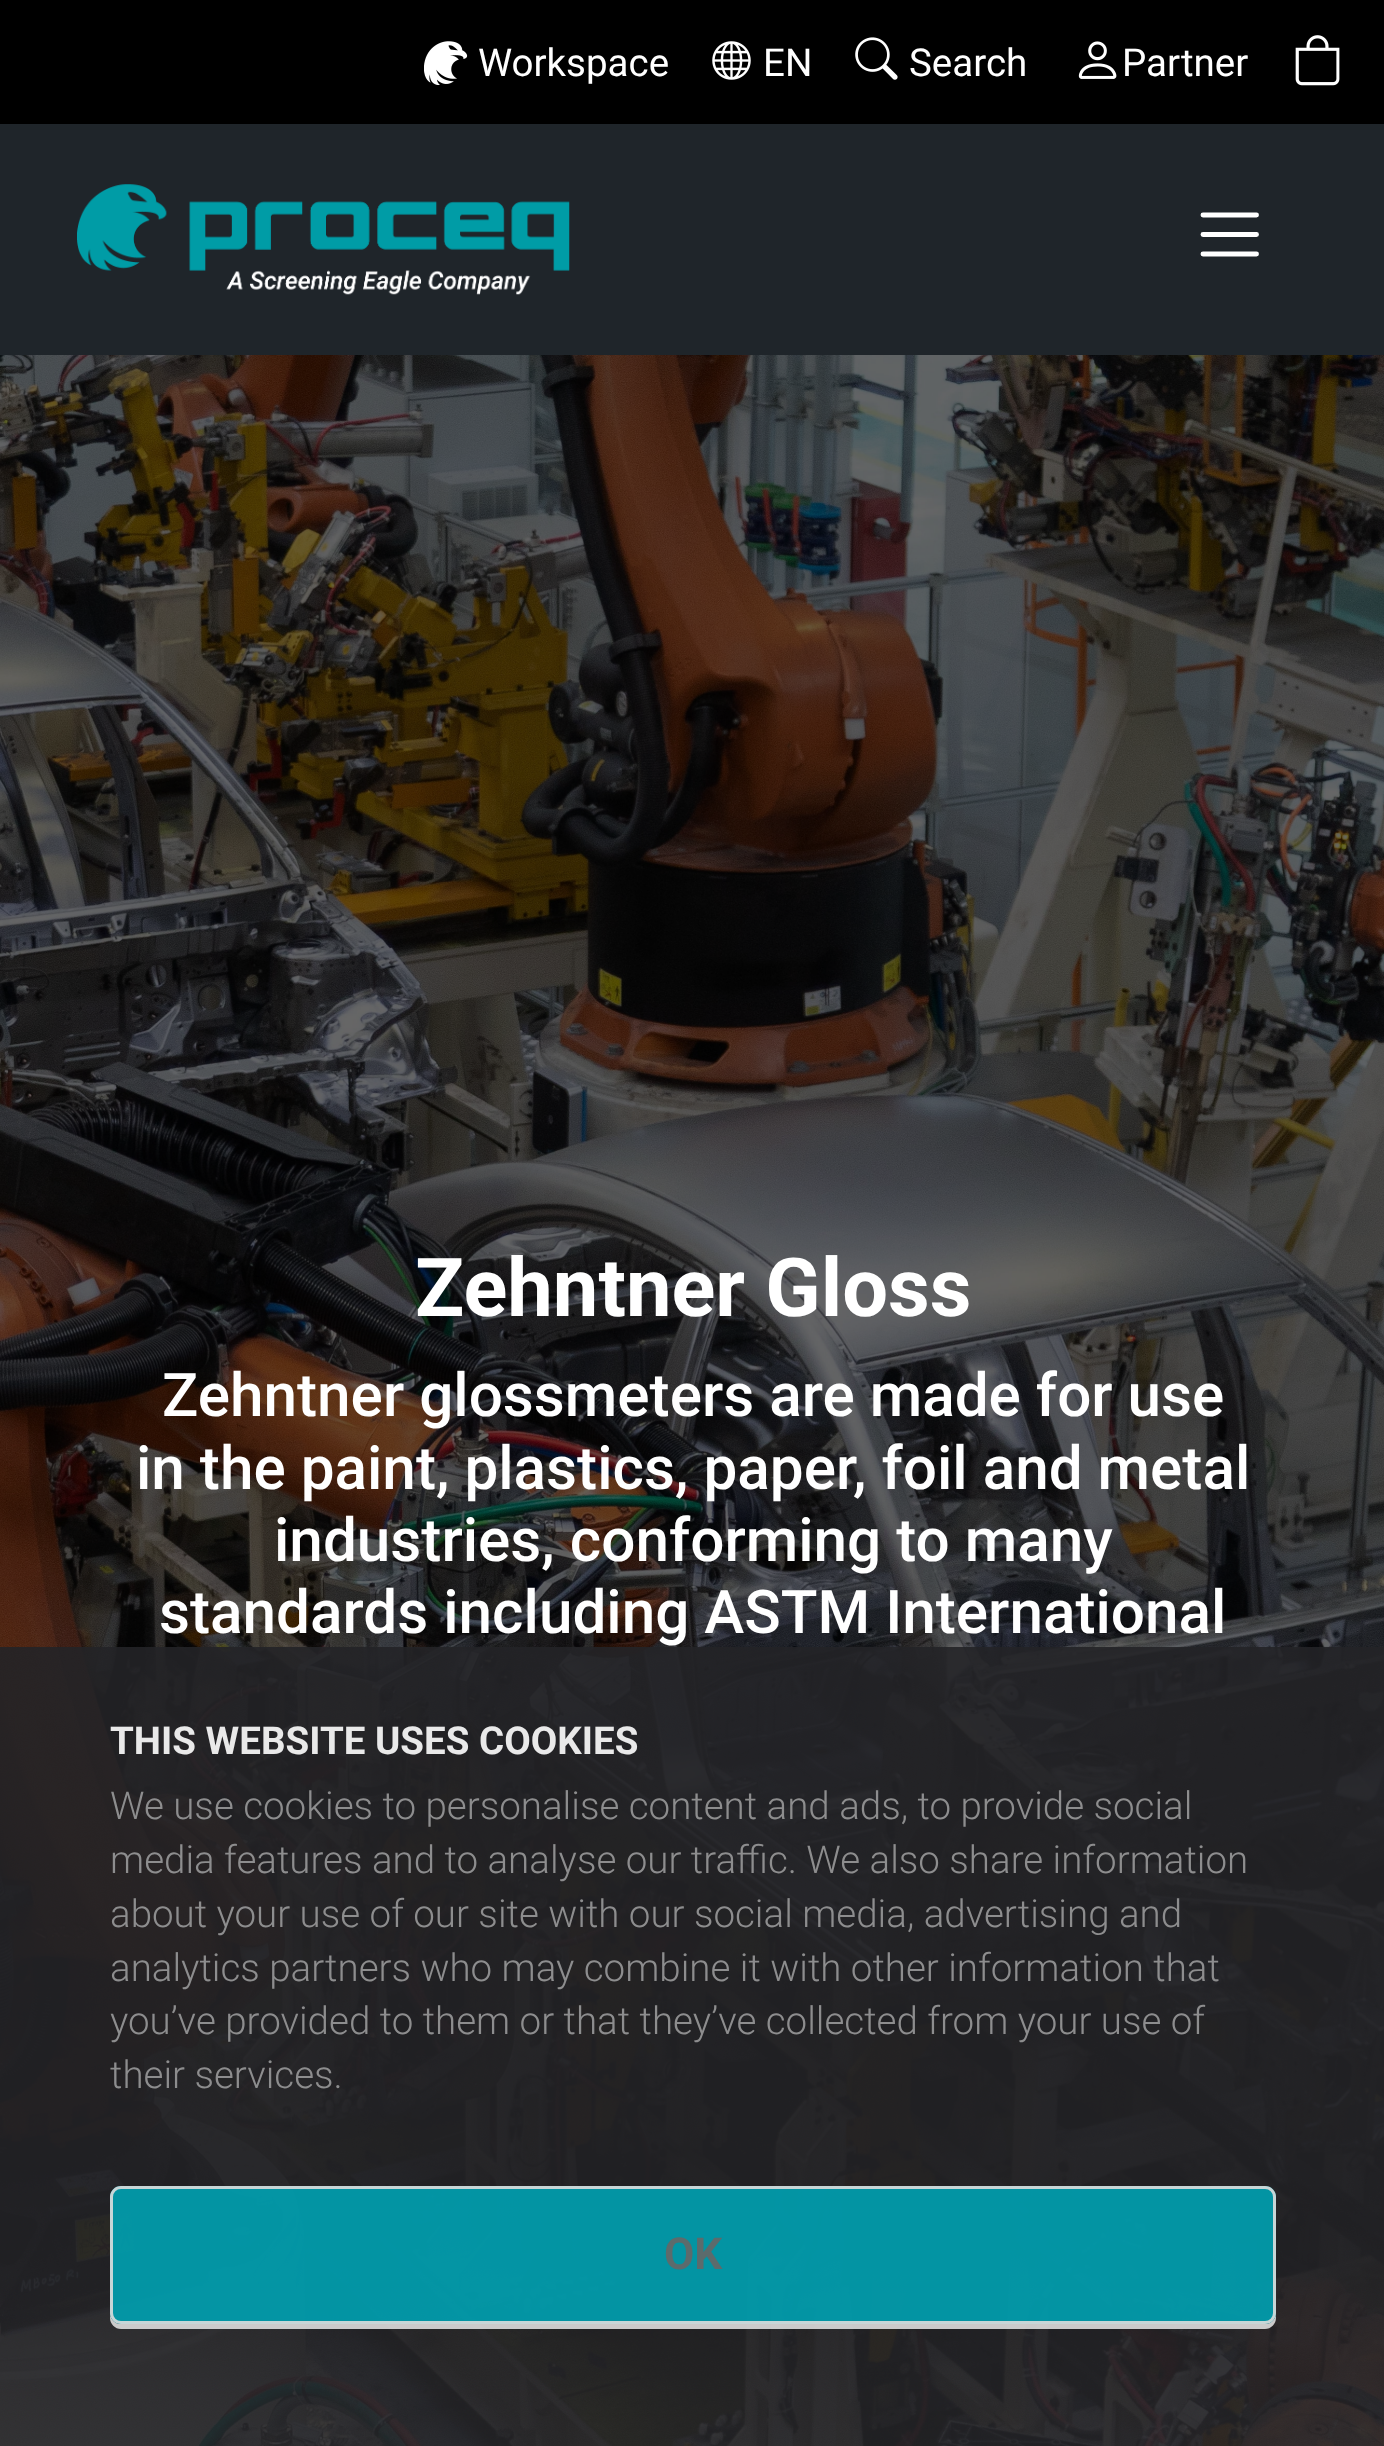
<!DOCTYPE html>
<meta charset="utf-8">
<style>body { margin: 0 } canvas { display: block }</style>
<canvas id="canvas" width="1384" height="2446"></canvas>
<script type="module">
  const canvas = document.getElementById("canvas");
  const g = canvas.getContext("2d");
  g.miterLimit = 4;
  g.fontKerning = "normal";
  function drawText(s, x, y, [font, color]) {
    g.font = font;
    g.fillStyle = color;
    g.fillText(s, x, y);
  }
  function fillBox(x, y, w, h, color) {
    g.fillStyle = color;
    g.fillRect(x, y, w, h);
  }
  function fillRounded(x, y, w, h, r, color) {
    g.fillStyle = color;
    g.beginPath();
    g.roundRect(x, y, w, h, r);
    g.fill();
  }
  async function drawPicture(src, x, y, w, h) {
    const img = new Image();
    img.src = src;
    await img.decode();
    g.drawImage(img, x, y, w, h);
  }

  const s1 = ["38.5px Roboto", "#FFFFFF"];
  const s2 = ["bold 81.25px Roboto", "#FFFFFF"];
  const s3 = ["500 60.25px Roboto", "#FFFFFF"];
  const s4 = ["bold 38.5px Roboto", "#E9E9E9"];
  const s5 = ["300 38.5px Roboto", "#8D8D8E"];
  const s6 = ["bold 44px Roboto", "#5C6B6C"];

  fillBox(0, 0, 1384, 2446, "#1F252A");
  fillBox(0, 0, 1384, 124, "#000000");
  await drawPicture("pic1.png", 424, 41, 44, 44);
  drawText("Workspace", 478, 76, s1);
  await drawPicture("pic2.png", 712, 41, 39, 39);
  drawText("EN", 763, 76, s1);
  await drawPicture("pic3.png", 855, 37, 43, 43);
  drawText("Search", 909, 76, s1);
  await drawPicture("pic4.png", 1078, 41, 39, 38);
  drawText("Partner", 1122, 76, s1);
  await drawPicture("pic5.png", 1295, 35, 45, 51);
  await drawPicture("pic6.png", 77, 184, 493, 111);
  g.beginPath();
  g.moveTo(1203, 215);
  g.lineTo(1256.5, 215);
  g.moveTo(1203, 234.5);
  g.lineTo(1256.5, 234.5);
  g.moveTo(1203, 254);
  g.lineTo(1256.5, 254);
  g.strokeStyle = "#FFFFFF";
  g.lineWidth = 4.9;
  g.lineCap = "round";
  g.stroke();
  await drawPicture("pic7.png", 0, 355, 1384, 2091);
  drawText("Zehntner Gloss", 415, 1316, s2);
  drawText("Zehntner glossmeters are made for use", 162, 1416, s3);
  drawText("in the paint, plastics, paper, foil and metal", 136, 1489, s3);
  drawText("industries, conforming to many", 274, 1561, s3);
  drawText("standards including ASTM International", 159, 1633, s3);
  fillBox(0, 1647, 1384, 799, "rgba(36, 36, 39, 0.9)");
  drawText("THIS WEBSITE USES COOKIES", 110, 1754, s4);
  drawText("We use cookies to personalise content and ads, to provide social", 110, 1819, s5);
  drawText("media features and to analyse our traffic. We also share information", 110, 1873, s5);
  drawText("about your use of our site with our social media, advertising and", 110, 1927, s5);
  drawText("analytics partners who may combine it with other information that", 110, 1981, s5);
  drawText("you’ve provided to them or that they’ve collected from your use of", 110, 2034, s5);
  drawText("their services.", 110, 2088, s5);
  g.fillStyle = "rgba(221, 221, 221, 0.9)";
  g.beginPath();
  g.moveTo(110, 2313);
  g.lineTo(110, 2318);
  g.bezierCurveTo(110, 2324, 115, 2329, 121, 2329);
  g.lineTo(1265, 2329);
  g.bezierCurveTo(1271, 2329, 1276, 2324, 1276, 2318);
  g.lineTo(1276, 2313);
  g.bezierCurveTo(1276, 2319, 1271, 2324, 1265, 2324);
  g.lineTo(121, 2324);
  g.bezierCurveTo(115, 2324, 110, 2319, 110, 2313);
  g.closePath();
  g.fill();
  fillRounded(110, 2186, 1166, 138, 11, "rgba(0, 161, 177, 0.9)");
  g.beginPath();
  g.roundRect(111.5, 2187.5, 1163, 135, 9.5);
  g.strokeStyle = "rgba(221, 221, 221, 0.9)";
  g.lineWidth = 3;
  g.stroke();
  drawText("OK", 664, 2269, s6);
</script>
